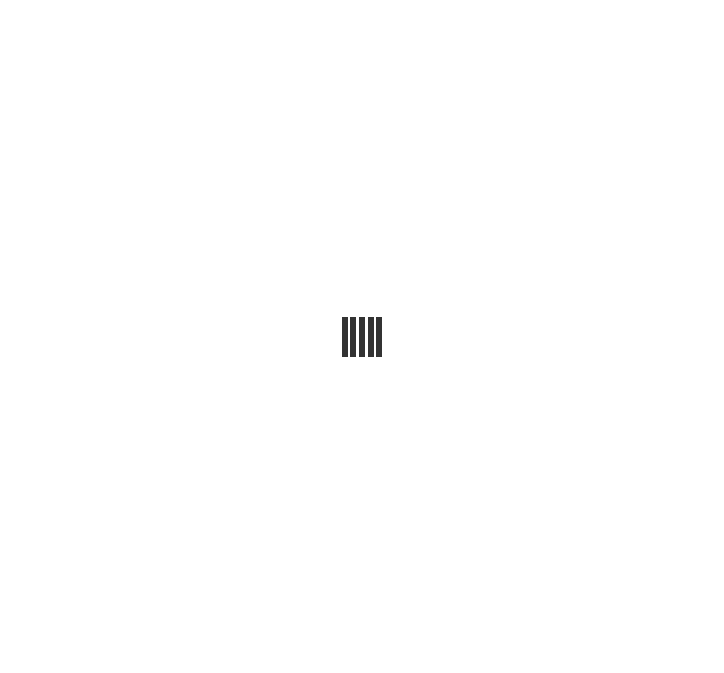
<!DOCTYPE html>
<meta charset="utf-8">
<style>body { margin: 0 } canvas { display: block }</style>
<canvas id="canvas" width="724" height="673"></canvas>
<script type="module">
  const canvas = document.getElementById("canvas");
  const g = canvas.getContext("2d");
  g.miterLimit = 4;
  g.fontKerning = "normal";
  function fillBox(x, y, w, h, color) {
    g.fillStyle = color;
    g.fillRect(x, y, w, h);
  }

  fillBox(0, 0, 724, 673, "#FFFFFF");
  fillBox(342, 317, 6, 40, "#333333");
  fillBox(350, 317, 6, 40, "#333333");
  fillBox(359, 317, 6, 40, "#333333");
  fillBox(368, 317, 6, 40, "#333333");
  fillBox(376, 317, 6, 40, "#333333");
</script>
